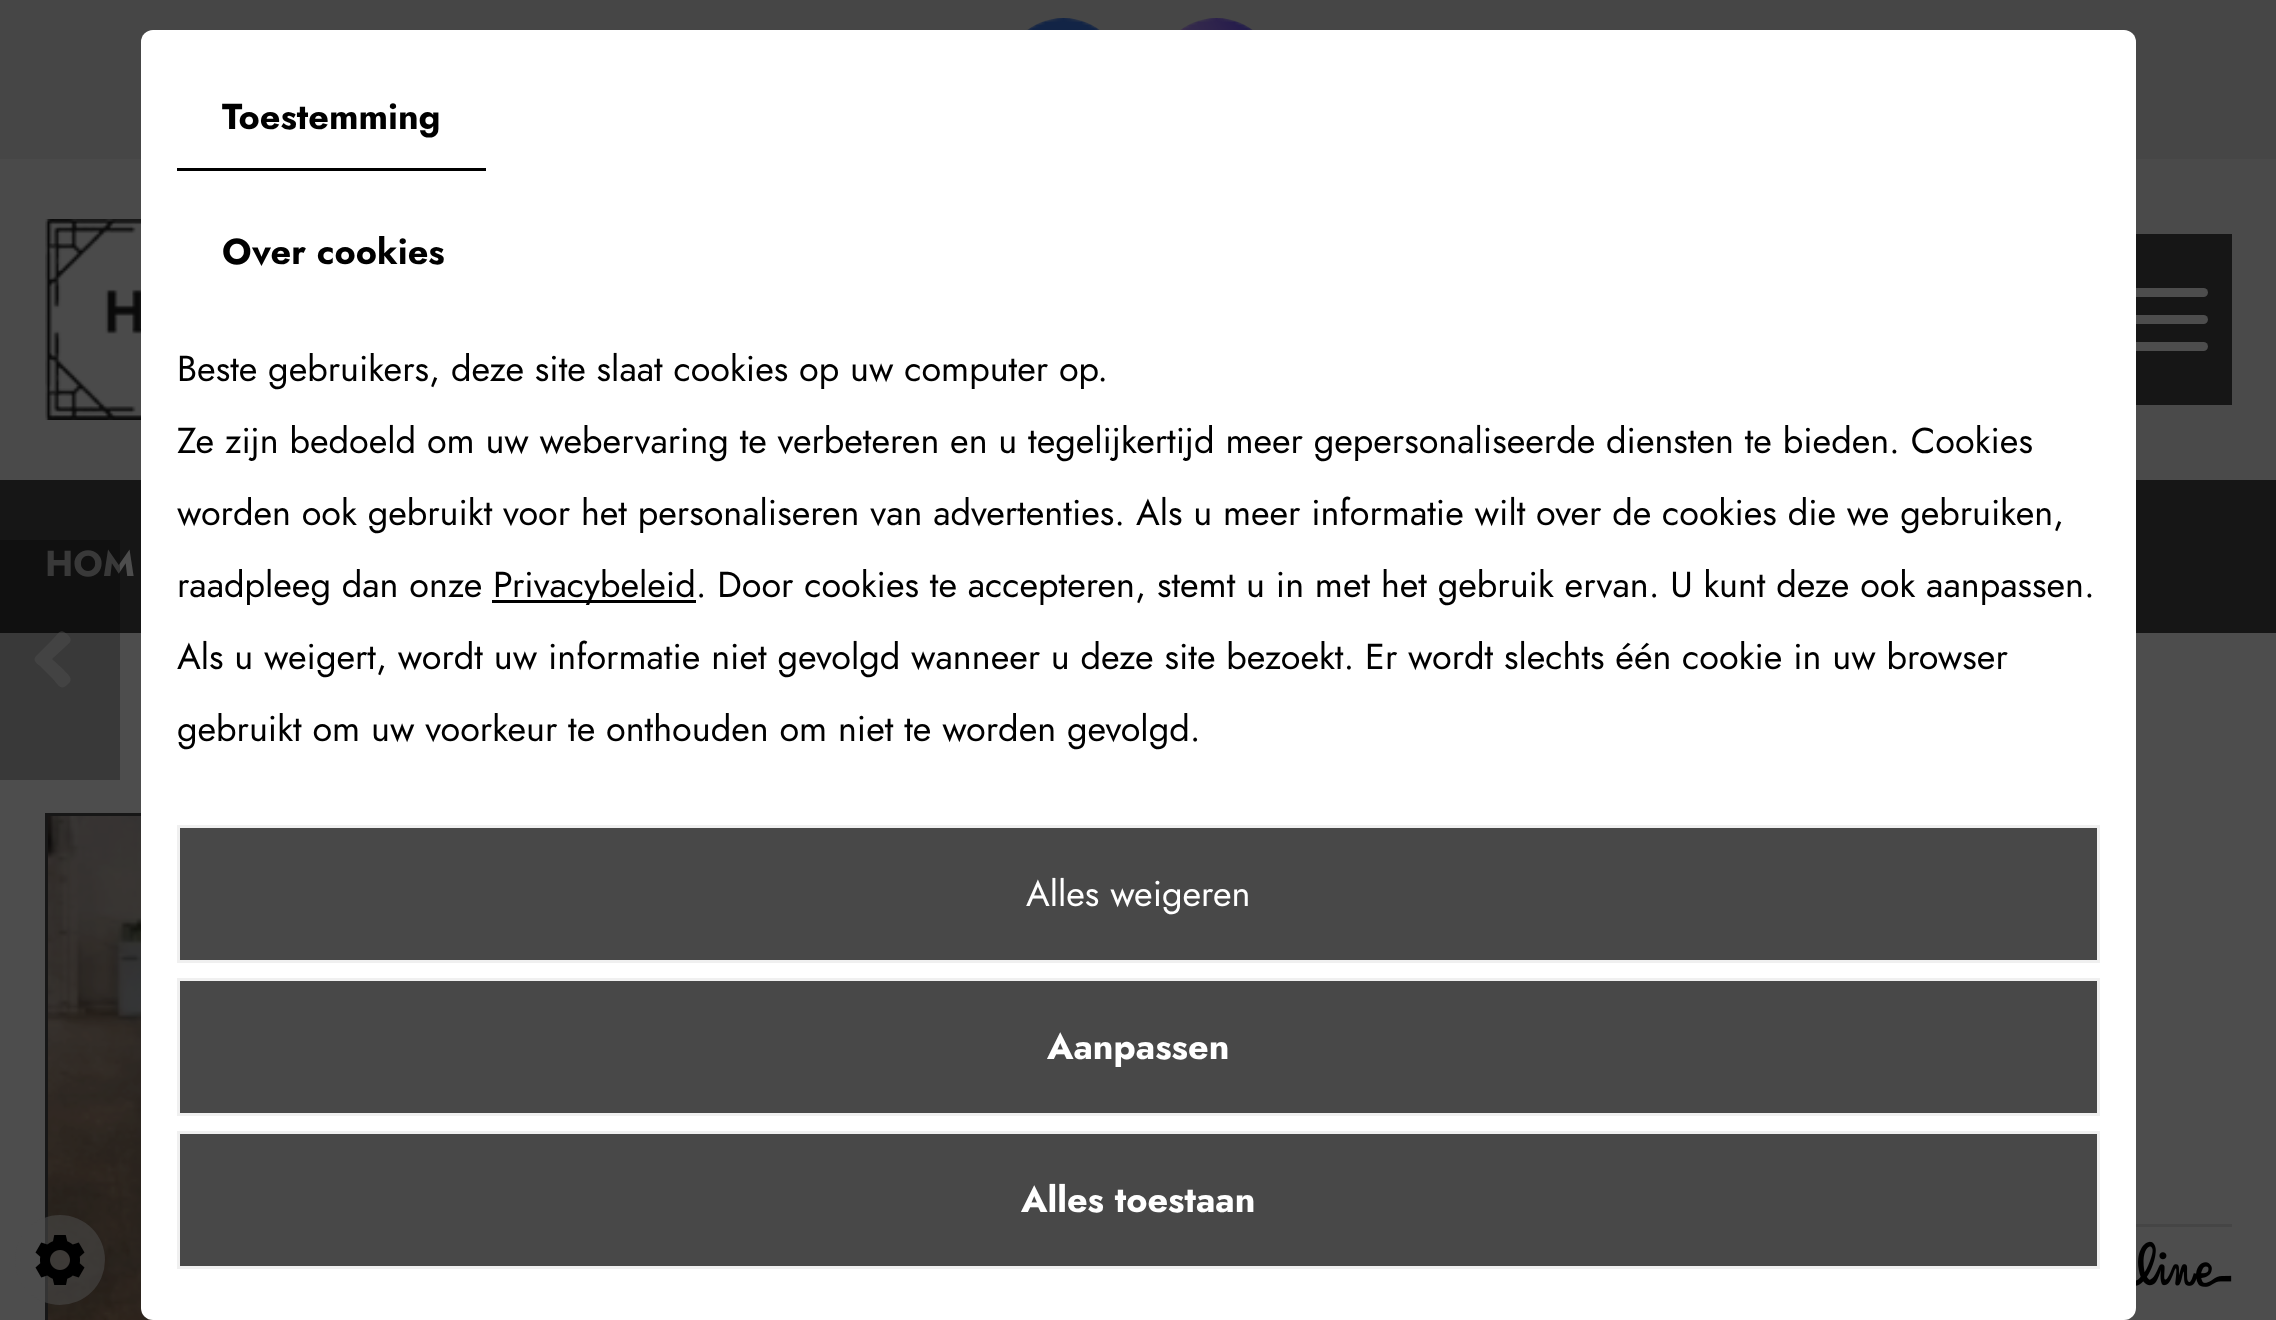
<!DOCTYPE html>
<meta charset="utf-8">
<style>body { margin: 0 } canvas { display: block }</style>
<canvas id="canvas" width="2276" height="1320"></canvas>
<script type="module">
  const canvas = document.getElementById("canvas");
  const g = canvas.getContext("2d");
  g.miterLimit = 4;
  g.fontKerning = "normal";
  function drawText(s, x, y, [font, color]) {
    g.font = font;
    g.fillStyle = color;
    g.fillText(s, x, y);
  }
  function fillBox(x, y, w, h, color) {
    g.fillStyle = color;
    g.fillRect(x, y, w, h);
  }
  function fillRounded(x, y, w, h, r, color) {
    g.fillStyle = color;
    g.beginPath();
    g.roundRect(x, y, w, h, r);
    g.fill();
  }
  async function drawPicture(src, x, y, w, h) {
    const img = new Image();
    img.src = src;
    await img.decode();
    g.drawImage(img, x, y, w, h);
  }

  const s1 = ["bold 36px Jost", "#4D4D4D"];
  const s2 = ["bold 36px Jost", "#000000"];
  const s3 = ["36px Jost", "#000000"];
  const s4 = ["36px Jost", "#FFFFFF"];
  const s5 = ["bold 36px Jost", "#FFFFFF"];

  fillBox(0, 0, 2276, 1320, "#4D4D4D");
  fillBox(0, 0, 2276, 159, "#464646");
  await drawPicture("pic1.png", 1027, 18, 73, 12);
  await drawPicture("pic2.png", 1180, 18, 73, 12);
  fillBox(0, 159, 2276, 321, "#4A4A4A");
  await drawPicture("pic3.png", 45, 219, 96, 201);
  fillBox(2136, 234, 96, 171, "#161616");
  fillRounded(2109, 288, 99, 9, 4.5, "#4D4D4D");
  fillRounded(2109, 315, 99, 9, 4.5, "#4D4D4D");
  fillRounded(2109, 342, 99, 9, 4.5, "#4D4D4D");
  fillBox(0, 480, 2276, 153, "#161616");
  drawText("HOM", 45, 576, s1);
  fillBox(0, 540, 120, 240, "rgba(0, 0, 0, 0.25)");
  g.fillStyle = "rgba(77, 77, 77, 0.5)";
  g.beginPath();
  g.moveTo(36, 656);
  g.lineTo(52, 640);
  g.bezierCurveTo(59, 633, 60, 627, 68, 635);
  g.bezierCurveTo(74, 641, 69, 643, 64, 648);
  g.lineTo(52, 659);
  g.lineTo(64, 670);
  g.bezierCurveTo(66, 673, 73, 677, 70, 682);
  g.bezierCurveTo(61, 692, 60, 687, 52, 678);
  g.lineTo(40, 666);
  g.bezierCurveTo(37, 664, 32, 660, 36, 656);
  g.closePath();
  g.fill();
  g.strokeStyle = "#161616";
  g.lineWidth = 3;
  g.strokeRect(46.5, 814.5, 930, 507);
  await drawPicture("pic4.png", 48, 816, 105, 504);
  fillBox(2136, 1224, 96, 3, "#454545");
  fillRounded(141, 30, 1995, 1290, 12, "#FFFFFF");
  fillBox(177, 168, 309, 3, "#000000");
  drawText("Toestemming", 222, 129, s2);
  drawText("Over cookies", 222, 264, s2);
  drawText("Beste gebruikers, deze site slaat cookies op uw computer op.", 177, 381, s3);
  drawText("Ze zijn bedoeld om uw webervaring te verbeteren en u tegelijkertijd meer gepersonaliseerde diensten te bieden. Cookies", 177, 453, s3);
  drawText("worden ook gebruikt voor het personaliseren van advertenties. Als u meer informatie wilt over de cookies die we gebruiken,", 177, 525, s3);
  drawText("raadpleeg dan onze", 177, 597, s3);
  fillBox(492, 600, 204, 3, "#000000");
  drawText("Privacybeleid. Door cookies te accepteren, stemt u in met het gebruik ervan. U kunt deze ook aanpassen.", 493, 597, s3);
  drawText("Als u weigert, wordt uw informatie niet gevolgd wanneer u deze site bezoekt. Er wordt slechts één cookie in uw browser", 177, 669, s3);
  drawText("gebruikt om uw voorkeur te onthouden om niet te worden gevolgd.", 177, 741, s3);
  g.fillStyle = "#484848";
  g.beginPath();
  g.rect(178.5, 826.5, 1920, 135);
  g.fill();
  g.strokeStyle = "#F0F0F0";
  g.stroke();
  drawText("Alles weigeren", 1026, 906, s4);
  g.fillStyle = "#484848";
  g.beginPath();
  g.rect(178.5, 979.5, 1920, 135);
  g.fill();
  g.stroke();
  drawText("Aanpassen", 1047, 1059, s5);
  g.fillStyle = "#484848";
  g.beginPath();
  g.rect(178.5, 1132.5, 1920, 135);
  g.fill();
  g.stroke();
  drawText("Alles toestaan", 1021, 1212, s5);
  g.fillStyle = "rgba(77, 77, 77, 0.54)";
  g.beginPath();
  g.arc(60, 1260, 45, 0, Math.PI * 2);
  g.fill();
  await drawPicture("pic5.png", 35, 1235, 50, 50);
  await drawPicture("pic6.png", 2136, 1241, 96, 46);
</script>
